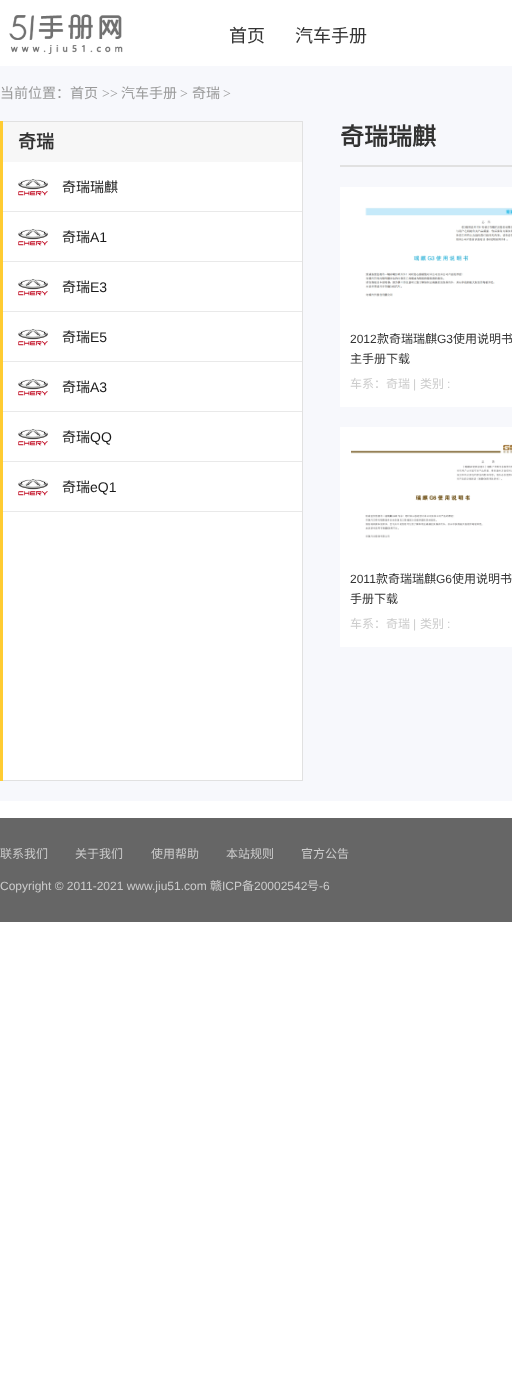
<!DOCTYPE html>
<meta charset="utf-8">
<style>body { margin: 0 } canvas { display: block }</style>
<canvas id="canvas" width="512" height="1392"></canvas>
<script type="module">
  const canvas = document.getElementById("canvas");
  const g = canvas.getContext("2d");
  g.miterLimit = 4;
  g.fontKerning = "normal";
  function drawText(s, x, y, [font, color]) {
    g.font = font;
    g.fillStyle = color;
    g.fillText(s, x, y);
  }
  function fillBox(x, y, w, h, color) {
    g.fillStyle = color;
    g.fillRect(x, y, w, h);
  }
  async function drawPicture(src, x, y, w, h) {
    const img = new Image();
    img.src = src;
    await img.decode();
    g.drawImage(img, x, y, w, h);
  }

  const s1 = ["18px Noto Sans CJK SC", "#333333"];
  const s2 = ["14px Noto Sans CJK SC", "#999999"];
  const s3 = ["14px Liberation Serif", "#999999"];
  const s4 = ["bold 18px Noto Sans CJK SC", "#333333"];
  const s5 = ["14px Noto Sans CJK SC", "#1A1A1A"];
  const s6 = ["14px Liberation Sans", "#1A1A1A"];
  const s7 = ["bold 24px Noto Sans CJK SC", "#333333"];
  const s8 = ["12px Liberation Sans", "#333333"];
  const s9 = ["12px Noto Sans CJK SC", "#333333"];
  const s10 = ["12px Noto Sans CJK SC", "#CCCCCC"];
  const s11 = ["12px Liberation Sans", "#CCCCCC"];

  fillBox(0, 0, 512, 1392, "#FFFFFF");
  await drawPicture("pic1.png", 9, 14, 114, 40);
  drawText("首页", 229, 42, s1);
  drawText("汽车手册", 295, 42, s1);
  fillBox(0, 66, 512, 735, "#F7F8FC");
  drawText("当前位置：首页", 0, 98, s2);
  drawText(">>", 102, 98, s3);
  drawText("汽车手册", 121, 98, s2);
  drawText(">", 180, 98, s3);
  drawText("奇瑞", 192, 98, s2);
  drawText(">", 223, 98, s3);
  fillBox(0, 121, 3, 660, "#FFCC32");
  fillBox(3, 162, 299, 618, "#FFFFFF");
  fillBox(3, 121, 300, 1, "#E1E1E1");
  fillBox(302, 121, 1, 660, "#E1E1E1");
  fillBox(3, 780, 300, 1, "#E1E1E1");
  fillBox(3, 122, 299, 40, "#F7F7F7");
  drawText("奇瑞", 18, 148, s4);
  fillBox(3, 211, 299, 1, "#E9E9E9");
  await drawPicture("pic2.png", 18, 179, 30, 17);
  drawText("奇瑞瑞麒", 62, 192, s5);
  fillBox(3, 261, 299, 1, "#E9E9E9");
  await drawPicture("pic2.png", 18, 229, 30, 17);
  drawText("奇瑞", 62, 242, s5);
  drawText("A1", 90, 242, s6);
  fillBox(3, 311, 299, 1, "#E9E9E9");
  await drawPicture("pic2.png", 18, 279, 30, 17);
  drawText("奇瑞", 62, 292, s5);
  drawText("E3", 90, 292, s6);
  fillBox(3, 361, 299, 1, "#E9E9E9");
  await drawPicture("pic2.png", 18, 329, 30, 17);
  drawText("奇瑞", 62, 342, s5);
  drawText("E5", 90, 342, s6);
  fillBox(3, 411, 299, 1, "#E9E9E9");
  await drawPicture("pic2.png", 18, 379, 30, 17);
  drawText("奇瑞", 62, 392, s5);
  drawText("A3", 90, 392, s6);
  fillBox(3, 461, 299, 1, "#E9E9E9");
  await drawPicture("pic2.png", 18, 429, 30, 17);
  drawText("奇瑞", 62, 442, s5);
  drawText("QQ", 90, 442, s6);
  fillBox(3, 511, 299, 1, "#E9E9E9");
  await drawPicture("pic2.png", 18, 479, 30, 17);
  drawText("奇瑞", 62, 492, s5);
  drawText("eQ1", 90, 492, s6);
  fillBox(340, 165, 172, 2, "#E1E1E1");
  drawText("奇瑞瑞麒", 340, 145, s7);
  fillBox(340, 187, 172, 220, "#FFFFFF");
  await drawPicture("pic3.png", 365, 207, 147, 90);
  drawText("2012", 350, 343, s8);
  drawText("款奇瑞瑞麒", 377, 343, s9);
  drawText("G3", 437, 343, s8);
  drawText("使用说明书", 453, 343, s9);
  drawText("主手册下载", 350, 363, s9);
  drawText("车系：奇瑞", 350, 388, s10);
  drawText("|", 413, 388, s11);
  drawText("类别", 420, 388, s10);
  drawText(":", 447, 388, s11);
  fillBox(340, 427, 172, 220, "#FFFFFF");
  await drawPicture("pic4.png", 351, 444, 161, 94);
  drawText("2011", 350, 583, s8);
  drawText("款奇瑞瑞麒", 376, 583, s9);
  drawText("G6", 436, 583, s8);
  drawText("使用说明书", 452, 583, s9);
  drawText("手册下载", 350, 603, s9);
  drawText("车系：奇瑞", 350, 628, s10);
  drawText("|", 413, 628, s11);
  drawText("类别", 420, 628, s10);
  drawText(":", 447, 628, s11);
  fillBox(0, 818, 512, 104, "#666666");
  drawText("联系我们", 0, 858, s10);
  drawText("关于我们", 75, 858, s10);
  drawText("使用帮助", 151, 858, s10);
  drawText("本站规则", 226, 858, s10);
  drawText("官方公告", 301, 858, s10);
  drawText("Copyright © 2011-2021 www.jiu51.com", 0, 890, s11);
  drawText("赣", 210, 890, s10);
  drawText("ICP", 222, 890, s11);
  drawText("备", 242, 890, s10);
  drawText("20002542", 254, 890, s11);
  drawText("号", 307, 890, s10);
  drawText("-6", 319, 890, s11);
</script>
